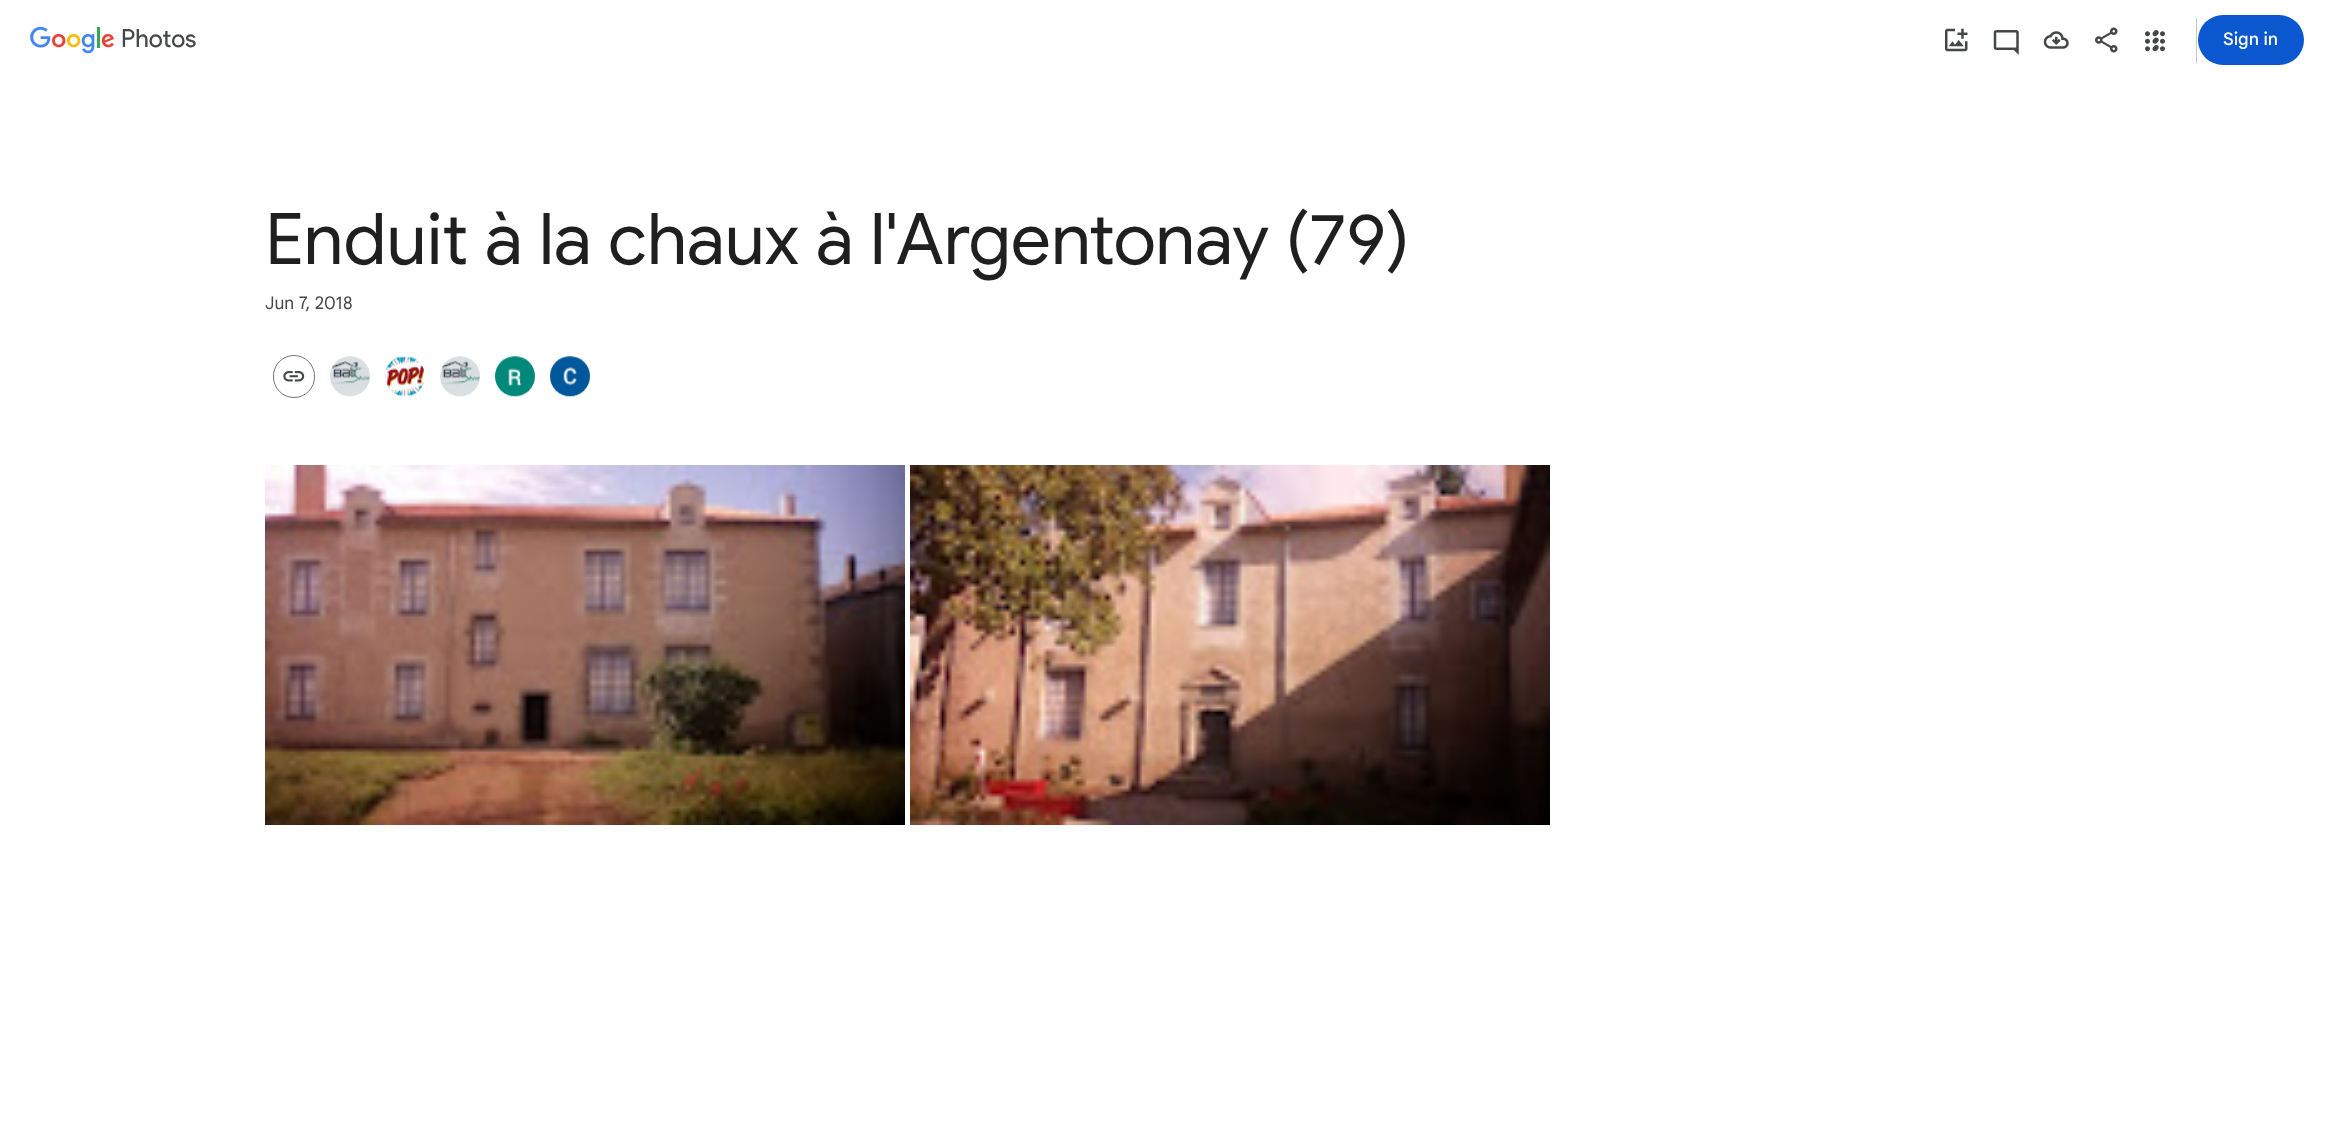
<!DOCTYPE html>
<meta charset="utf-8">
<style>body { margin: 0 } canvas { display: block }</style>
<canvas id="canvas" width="2348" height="1122"></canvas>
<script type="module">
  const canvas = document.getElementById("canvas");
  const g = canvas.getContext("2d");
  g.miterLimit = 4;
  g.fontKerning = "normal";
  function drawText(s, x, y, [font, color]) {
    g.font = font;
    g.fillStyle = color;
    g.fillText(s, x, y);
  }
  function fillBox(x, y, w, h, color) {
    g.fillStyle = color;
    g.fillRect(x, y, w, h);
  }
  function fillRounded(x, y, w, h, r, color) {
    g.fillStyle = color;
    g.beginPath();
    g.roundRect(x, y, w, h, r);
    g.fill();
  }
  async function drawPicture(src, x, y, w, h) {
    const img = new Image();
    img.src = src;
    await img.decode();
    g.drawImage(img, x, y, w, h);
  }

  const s1 = ["25px Product Sans", "#444746"];
  const s2 = ["71.25px Google Sans", "#1F1F1F"];
  const s3 = ["17.5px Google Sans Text", "#444746"];
  const s4 = ["500 17.5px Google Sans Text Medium", "#FFFFFF"];

  fillBox(0, 0, 2348, 1122, "#FFFFFF");
  await drawPicture("pic1.png", 30, 26, 84, 28);
  drawText("Photos", 121, 47, s1);
  await drawPicture("pic2.png", 1945, 28, 23, 24);
  await drawPicture("pic3.png", 1993, 30, 26, 25);
  await drawPicture("pic4.png", 2043, 31, 26, 18);
  await drawPicture("pic5.png", 2095, 27, 23, 26);
  await drawPicture("pic6.png", 2153, 30, 6, 20);
  fillBox(2196, 18, 1, 45, "#C4C7C5");
  drawText("Enduit à la chaux à l'Argentonay (79)", 265, 264, s2);
  drawText("Jun 7, 2018", 265, 309, s3);
  g.beginPath();
  g.roundRect(273.5, 355.5, 41, 42, 20.5);
  g.strokeStyle = "#747775";
  g.stroke();
  await drawPicture("pic7.png", 283, 371, 22, 11);
  await drawPicture("pic8.png", 330, 356, 40, 41);
  await drawPicture("pic9.png", 385, 356, 40, 41);
  await drawPicture("pic10.png", 440, 356, 40, 41);
  await drawPicture("pic11.png", 495, 356, 40, 41);
  await drawPicture("pic12.png", 550, 356, 40, 41);
  await drawPicture("pic13.png", 265, 465, 640, 360);
  await drawPicture("pic14.png", 910, 465, 640, 360);
  await drawPicture("pic15.png", 2145, 31, 20, 21);
  fillRounded(2198, 15, 106, 50, 25, "#0B57D0");
  drawText("Sign in", 2223, 45, s4);
</script>
